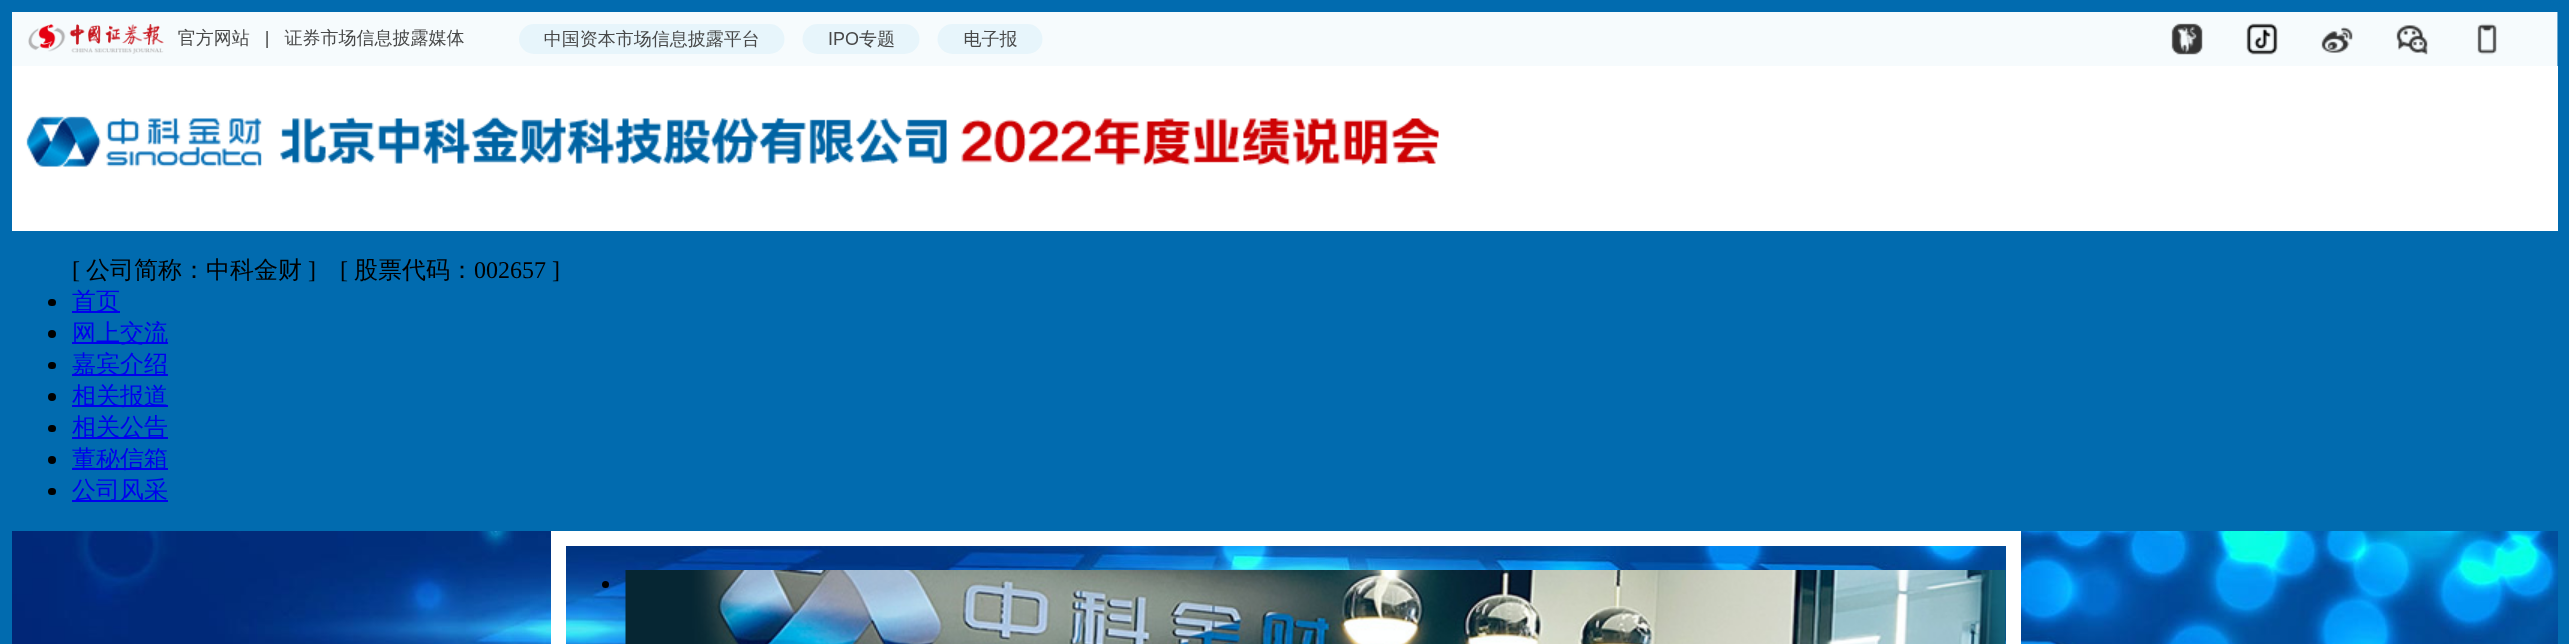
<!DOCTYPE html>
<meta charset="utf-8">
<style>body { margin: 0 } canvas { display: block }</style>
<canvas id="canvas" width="2569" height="644"></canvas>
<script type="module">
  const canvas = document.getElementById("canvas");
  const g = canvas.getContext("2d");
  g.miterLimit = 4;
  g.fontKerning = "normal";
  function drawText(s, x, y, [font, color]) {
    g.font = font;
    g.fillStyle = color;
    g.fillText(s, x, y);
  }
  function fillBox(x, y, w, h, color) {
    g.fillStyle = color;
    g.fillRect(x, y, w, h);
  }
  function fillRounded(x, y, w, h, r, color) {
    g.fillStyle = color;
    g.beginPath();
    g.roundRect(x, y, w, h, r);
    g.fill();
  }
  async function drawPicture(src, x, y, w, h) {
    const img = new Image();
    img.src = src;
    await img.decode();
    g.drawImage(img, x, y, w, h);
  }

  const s1 = ["24px Liberation Serif", "#000000"];
  const s2 = ["500 24px WenQuanYi Zen Hei", "#000000"];
  const s3 = ["500 24px WenQuanYi Zen Hei", "#0000EE"];

  fillBox(0, 0, 2569, 644, "#016BAF");
  await drawPicture("pic1.png", 12, 12, 2546, 54);
  fillBox(12, 66, 2546, 165, "#FFFFFF");
  await drawPicture("pic2.png", 26, 116, 1413, 51);
  drawText("[", 72, 278, s1);
  drawText("公司简称：中科金财", 86, 278, s2);
  drawText("]", 308, 278, s1);
  drawText("[", 340, 278, s1);
  drawText("股票代码：", 354, 278, s2);
  drawText("002657 ]", 474, 278, s1);
  fillRounded(48, 299, 8, 7, 3.5, "#000000");
  fillBox(72, 311, 48, 2, "#0000EE");
  drawText("首页", 72, 309, s3);
  g.fillStyle = "#000000";
  g.beginPath();
  g.arc(52, 334, 4, 0, Math.PI * 2);
  g.fill();
  fillBox(72, 342, 96, 2, "#0000EE");
  drawText("网上交流", 72, 341, s3);
  fillRounded(48, 362, 8, 7, 3.5, "#000000");
  fillBox(72, 374, 96, 2, "#0000EE");
  drawText("嘉宾介绍", 72, 372, s3);
  g.fillStyle = "#000000";
  g.beginPath();
  g.arc(52, 397, 4, 0, Math.PI * 2);
  g.fill();
  fillBox(72, 405, 96, 2, "#0000EE");
  drawText("相关报道", 72, 404, s3);
  fillRounded(48, 425, 8, 7, 3.5, "#000000");
  fillBox(72, 437, 96, 2, "#0000EE");
  drawText("相关公告", 72, 435, s3);
  g.fillStyle = "#000000";
  g.beginPath();
  g.arc(52, 460, 4, 0, Math.PI * 2);
  g.fill();
  fillBox(72, 468, 96, 2, "#0000EE");
  drawText("董秘信箱", 72, 467, s3);
  fillRounded(48, 488, 8, 7, 3.5, "#000000");
  fillBox(72, 500, 96, 2, "#0000EE");
  drawText("公司风采", 72, 498, s3);
  await drawPicture("pic3.png", 12, 531, 2546, 113);
  g.strokeStyle = "#FFFFFF";
  g.lineWidth = 15;
  g.strokeRect(558.5, 538.5, 1455, 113);
  g.fillStyle = "#000000";
  g.beginPath();
  g.arc(605.5, 584.5, 3.5, 0, Math.PI * 2);
  g.fill();
  await drawPicture("pic4.png", 625, 570, 1381, 74);
</script>
